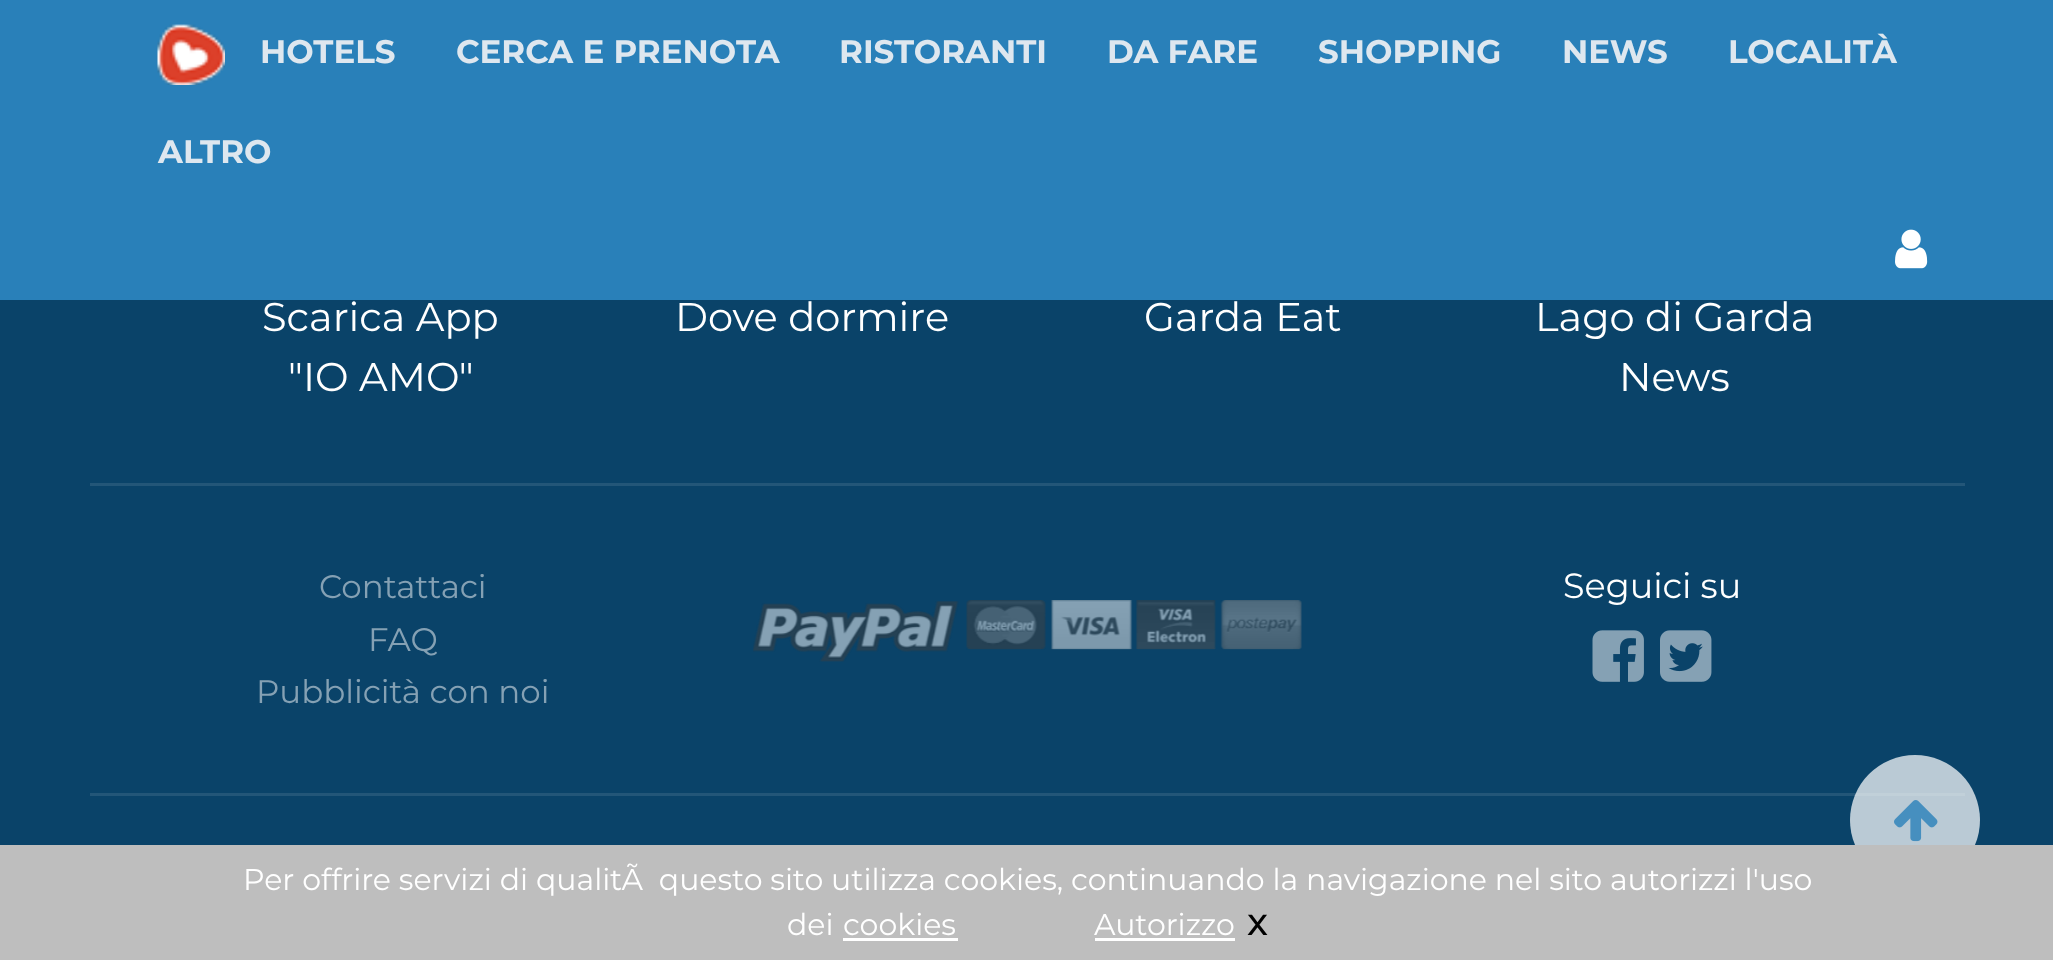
<!DOCTYPE html>
<meta charset="utf-8">
<style>body { margin: 0 } canvas { display: block }</style>
<canvas id="canvas" width="2053" height="960"></canvas>
<script type="module">
  const canvas = document.getElementById("canvas");
  const g = canvas.getContext("2d");
  g.miterLimit = 4;
  g.fontKerning = "normal";
  function drawText(s, x, y, [font, color]) {
    g.font = font;
    g.fillStyle = color;
    g.fillText(s, x, y);
  }
  function fillBox(x, y, w, h, color) {
    g.fillStyle = color;
    g.fillRect(x, y, w, h);
  }
  async function drawPicture(src, x, y, w, h) {
    const img = new Image();
    img.src = src;
    await img.decode();
    g.drawImage(img, x, y, w, h);
  }

  const s1 = ["bold 32.5px Montserrat", "#DEE7EF"];
  const s2 = ["40px Montserrat", "#FFFFFF"];
  const s3 = ["32.5px Montserrat", "#85A1B4"];
  const s4 = ["35px Montserrat", "#FFFFFF"];
  const s5 = ["30px Montserrat", "#FFFFFF"];
  const s6 = ["500 38px Montserrat", "#000000"];

  fillBox(0, 0, 2053, 960, "#0A4369");
  fillBox(0, 0, 2053, 300, "#2980B9");
  await drawPicture("pic1.png", 157, 24, 68, 61);
  drawText("HOTELS", 260, 63, s1);
  drawText("CERCA E PRENOTA", 456, 63, s1);
  drawText("RISTORANTI", 839, 63, s1);
  drawText("DA FARE", 1107, 63, s1);
  drawText("SHOPPING", 1318, 63, s1);
  drawText("NEWS", 1562, 63, s1);
  drawText("LOCALITÀ", 1728, 63, s1);
  drawText("ALTRO", 158, 163, s1);
  await drawPicture("pic2.png", 1895, 229, 33, 40);
  drawText("Scarica App", 262, 331, s2);
  drawText("\"IO AMO\"", 288, 391, s2);
  drawText("Dove dormire", 675, 331, s2);
  drawText("Garda Eat", 1144, 331, s2);
  drawText("Lago di Garda", 1535, 331, s2);
  drawText("News", 1619, 391, s2);
  fillBox(90, 483, 1875, 3, "#235678");
  fillBox(90, 793, 1875, 3, "#235678");
  drawText("Contattaci", 319, 598, s3);
  drawText("FAQ", 368, 651, s3);
  drawText("Pubblicità con noi", 256, 703, s3);
  await drawPicture("pic3.png", 753, 600, 549, 62);
  drawText("Seguici su", 1563, 598, s4);
  await drawPicture("pic4.png", 1592, 630, 52, 52);
  await drawPicture("pic5.png", 1660, 630, 52, 52);
  g.fillStyle = "rgba(255, 255, 255, 0.72)";
  g.beginPath();
  g.arc(1915, 820, 65, 0, Math.PI * 2);
  g.fill();
  await drawPicture("pic6.png", 1894, 800, 44, 42);
  fillBox(0, 845, 2053, 115, "#BEBEBE");
  drawText("Per offrire servizi di qualitÃ  questo sito utilizza cookies, continuando la navigazione nel sito autorizzi l'uso", 243, 890, s5);
  drawText("dei", 787, 935, s5);
  drawText("cookies", 843, 935, s5);
  fillBox(843, 938, 115, 3, "#FFFFFF");
  drawText("Autorizzo", 1094, 935, s5);
  fillBox(1095, 938, 140, 3, "#FFFFFF");
  drawText("x", 1247, 935, s6);
</script>
